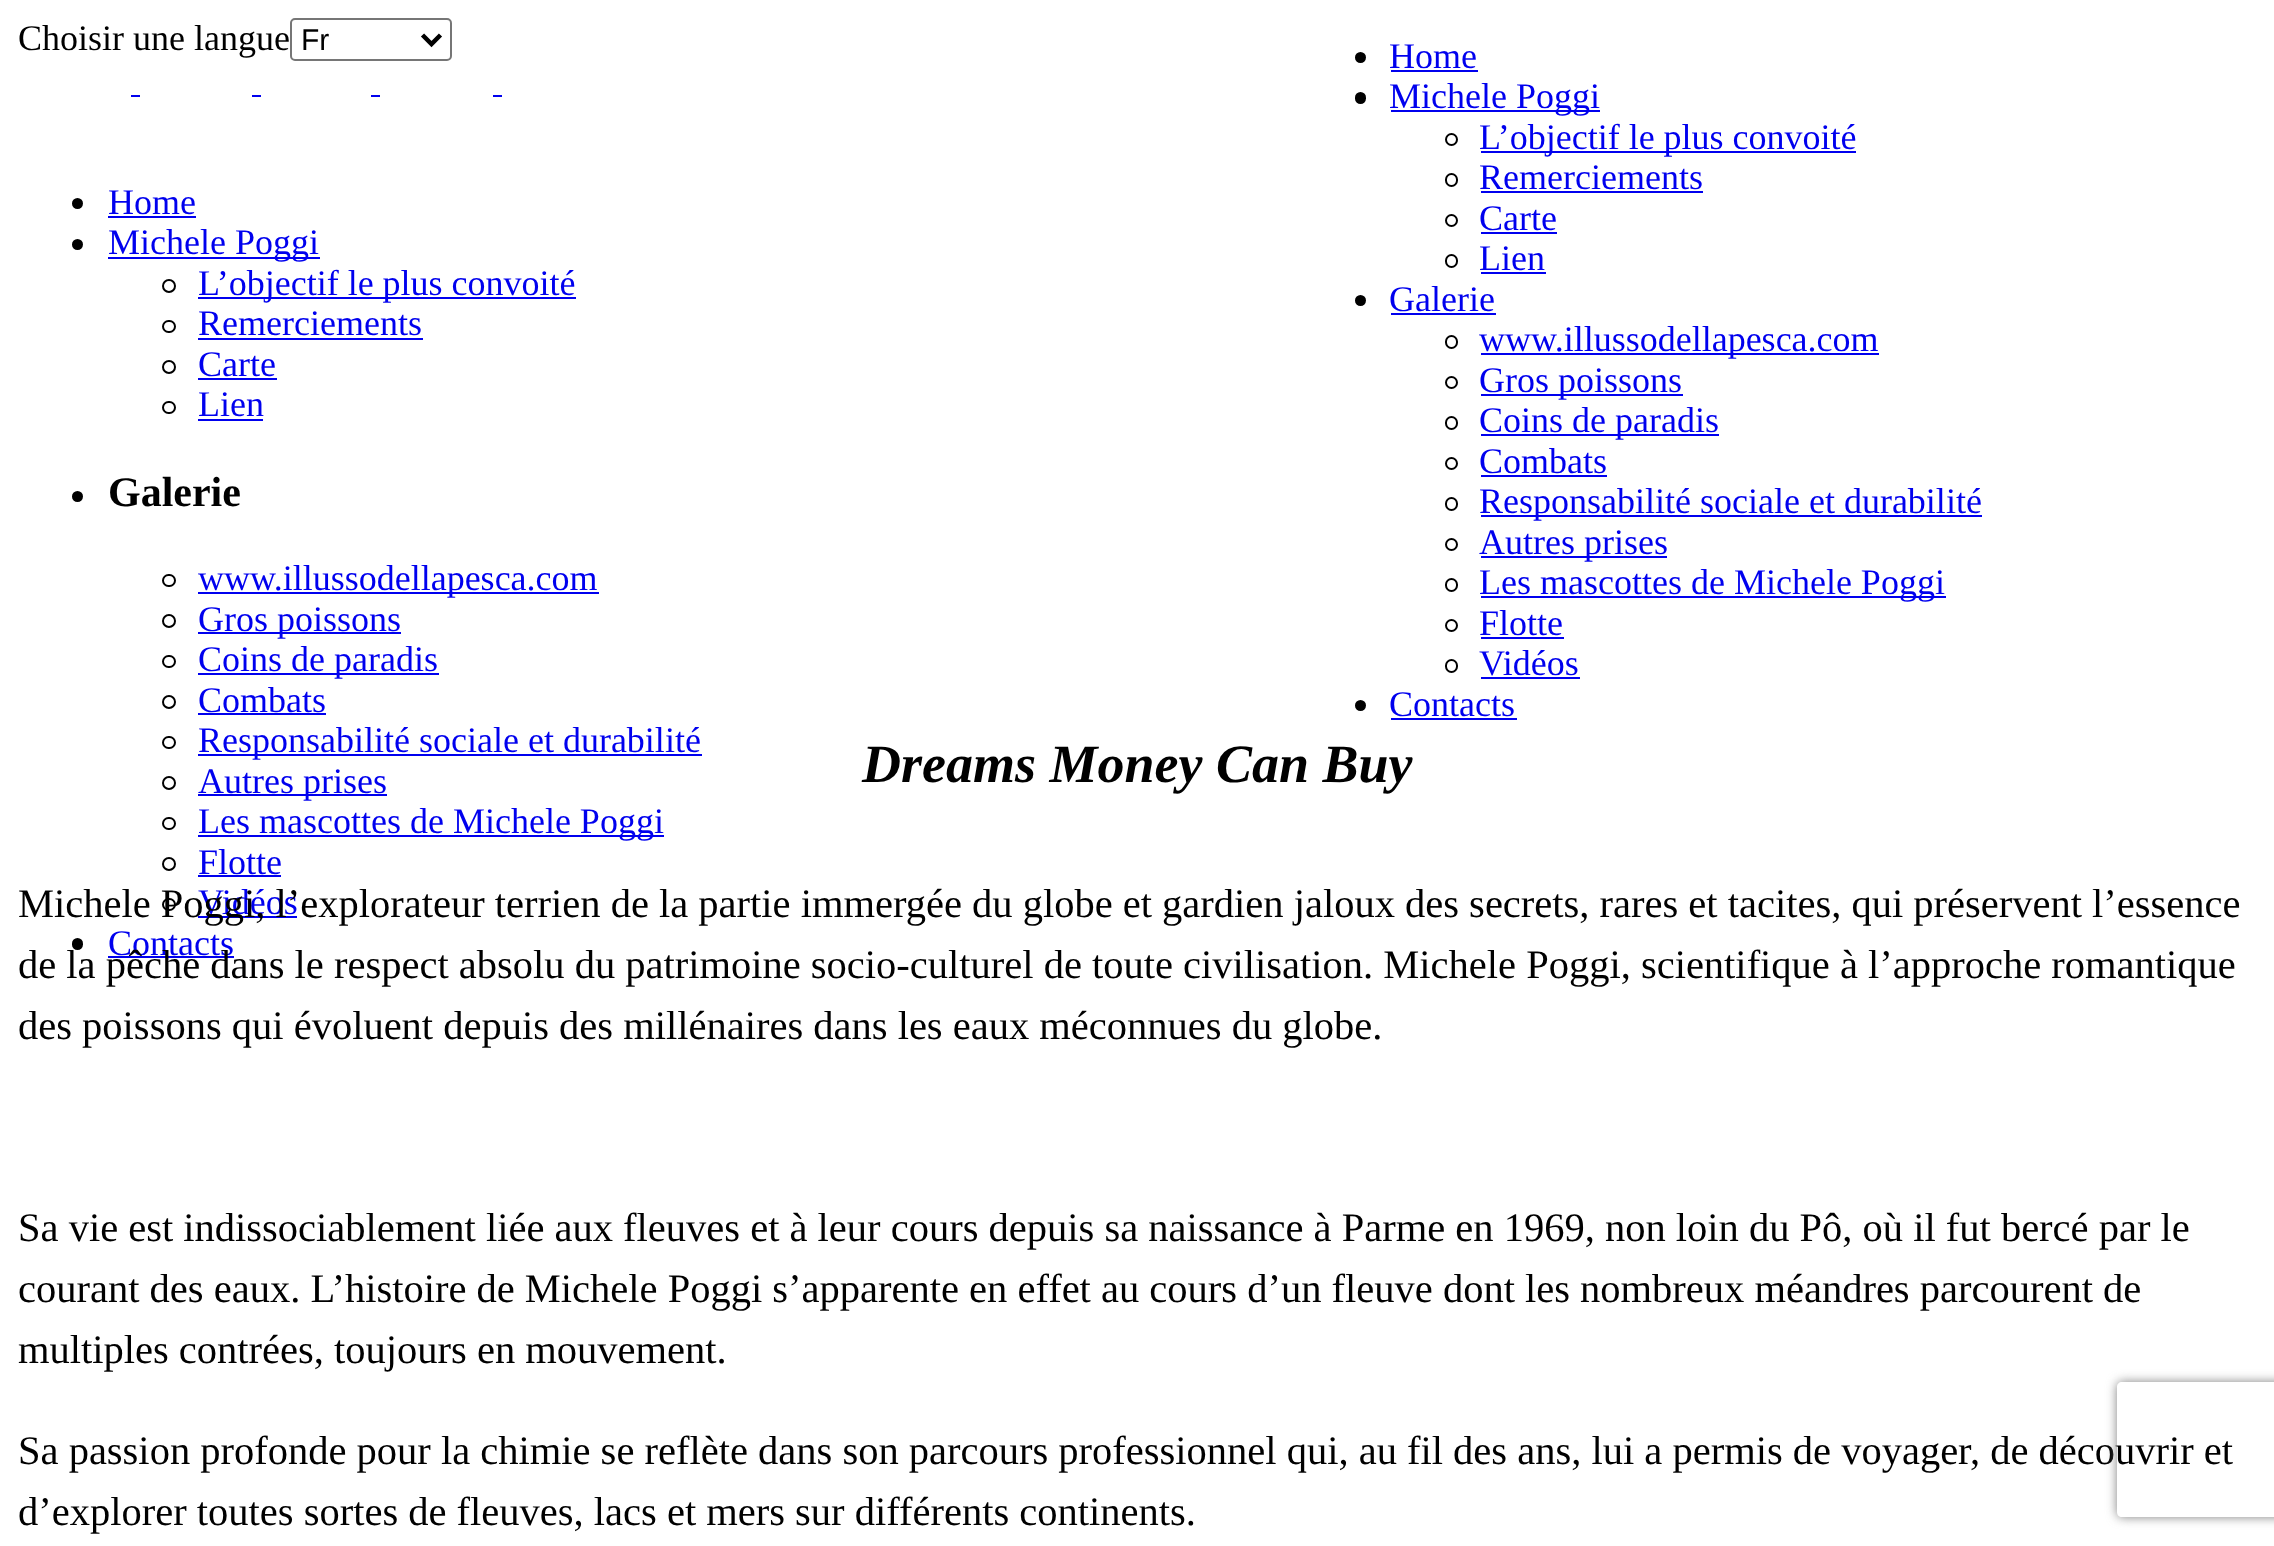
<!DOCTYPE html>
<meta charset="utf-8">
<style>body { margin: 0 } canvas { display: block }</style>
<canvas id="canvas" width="2274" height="1546"></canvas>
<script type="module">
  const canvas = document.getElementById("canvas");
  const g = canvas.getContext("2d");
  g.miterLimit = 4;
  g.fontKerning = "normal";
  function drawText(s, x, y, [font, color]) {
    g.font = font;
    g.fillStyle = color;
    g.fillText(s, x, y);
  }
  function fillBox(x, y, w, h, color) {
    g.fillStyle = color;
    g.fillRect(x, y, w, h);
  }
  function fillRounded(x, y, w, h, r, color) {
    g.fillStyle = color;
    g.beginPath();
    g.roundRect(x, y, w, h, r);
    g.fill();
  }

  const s1 = ["36px Liberation Serif", "#000000"];
  const s2 = ["30px Liberation Sans", "#000000"];
  const s3 = ["36px Liberation Serif", "#0000EE"];
  const s4 = ["bold 42px Liberation Serif", "#000000"];
  const s5 = ["italic bold 54px Liberation Serif", "#000000"];
  const s6 = ["40.5px Liberation Serif", "#000000"];

  fillBox(0, 0, 2274, 1546, "#FFFFFF");
  drawText("Choisir une langue", 18, 50, s1);
  g.beginPath();
  g.roundRect(291, 19, 160, 41, 4);
  g.strokeStyle = "#767676";
  g.lineWidth = 2;
  g.stroke();
  g.beginPath();
  g.moveTo(422.5, 35);
  g.lineTo(431.5, 44);
  g.lineTo(440.5, 35);
  g.strokeStyle = "#000000";
  g.lineWidth = 4.5;
  g.stroke();
  drawText("Fr", 301, 50, s2);
  fillBox(131, 95, 9, 2, "#0000EE");
  fillBox(252, 95, 9, 2, "#0000EE");
  fillBox(371, 95, 9, 2, "#0000EE");
  fillBox(493, 95, 9, 2, "#0000EE");
  g.fillStyle = "#000000";
  g.beginPath();
  g.arc(1360.5, 57.5, 5.5, 0, Math.PI * 2);
  g.fill();
  drawText("Home", 1389, 68, s3);
  fillBox(1391, 70, 87, 2, "#0000EE");
  fillRounded(1355, 92, 11, 12, 5.5, "#000000");
  fillBox(1391, 110, 209, 2, "#0000EE");
  drawText("Michele Poggi", 1389, 108, s3);
  g.beginPath();
  g.arc(1451.5, 139.5, 5.5, 0, Math.PI * 2);
  g.lineWidth = 2;
  g.stroke();
  fillBox(1481, 151, 375, 2, "#0000EE");
  drawText("L’objectif le plus convoité", 1479, 149, s3);
  g.beginPath();
  g.roundRect(1446, 174, 11, 12, 5.5);
  g.stroke();
  drawText("Remerciements", 1479, 189, s3);
  fillBox(1481, 191, 222, 2, "#0000EE");
  g.beginPath();
  g.arc(1451.5, 220.5, 5.5, 0, Math.PI * 2);
  g.stroke();
  drawText("Carte", 1479, 230, s3);
  fillBox(1481, 232, 76, 2, "#0000EE");
  g.beginPath();
  g.roundRect(1446, 255, 11, 12, 5.5);
  g.stroke();
  drawText("Lien", 1479, 270, s3);
  fillBox(1481, 272, 65, 2, "#0000EE");
  g.fillStyle = "#000000";
  g.beginPath();
  g.arc(1360.5, 300.5, 5.5, 0, Math.PI * 2);
  g.fill();
  drawText("Galerie", 1389, 311, s3);
  fillBox(1391, 313, 105, 2, "#0000EE");
  g.beginPath();
  g.roundRect(1446, 336, 11, 12, 5.5);
  g.stroke();
  fillBox(1481, 353, 398, 2, "#0000EE");
  drawText("www.illussodellapesca.com", 1479, 351, s3);
  g.beginPath();
  g.arc(1451.5, 382.5, 5.5, 0, Math.PI * 2);
  g.stroke();
  fillBox(1481, 394, 202, 2, "#0000EE");
  drawText("Gros poissons", 1479, 392, s3);
  g.beginPath();
  g.roundRect(1446, 417, 11, 12, 5.5);
  g.stroke();
  fillBox(1481, 434, 238, 2, "#0000EE");
  drawText("Coins de paradis", 1479, 432, s3);
  g.beginPath();
  g.arc(1451.5, 463.5, 5.5, 0, Math.PI * 2);
  g.stroke();
  drawText("Combats", 1479, 473, s3);
  fillBox(1481, 475, 126, 2, "#0000EE");
  g.beginPath();
  g.roundRect(1446, 498, 11, 12, 5.5);
  g.stroke();
  fillBox(1481, 515, 501, 2, "#0000EE");
  drawText("Responsabilité sociale et durabilité", 1479, 513, s3);
  g.beginPath();
  g.arc(1451.5, 544.5, 5.5, 0, Math.PI * 2);
  g.stroke();
  fillBox(1481, 556, 186, 2, "#0000EE");
  drawText("Autres prises", 1479, 554, s3);
  g.beginPath();
  g.roundRect(1446, 579, 11, 12, 5.5);
  g.stroke();
  fillBox(1481, 596, 465, 2, "#0000EE");
  drawText("Les mascottes de Michele Poggi", 1479, 594, s3);
  g.beginPath();
  g.arc(1451.5, 625.5, 5.5, 0, Math.PI * 2);
  g.stroke();
  drawText("Flotte", 1479, 635, s3);
  fillBox(1481, 637, 83, 2, "#0000EE");
  g.beginPath();
  g.roundRect(1446, 660, 11, 12, 5.5);
  g.stroke();
  drawText("Vidéos", 1479, 675, s3);
  fillBox(1481, 677, 99, 2, "#0000EE");
  g.fillStyle = "#000000";
  g.beginPath();
  g.arc(1360.5, 705.5, 5.5, 0, Math.PI * 2);
  g.fill();
  drawText("Contacts", 1389, 716, s3);
  fillBox(1391, 718, 126, 2, "#0000EE");
  g.fillStyle = "#000000";
  g.beginPath();
  g.arc(77.5, 203.5, 5.5, 0, Math.PI * 2);
  g.fill();
  drawText("Home", 108, 214, s3);
  fillBox(108, 216, 88, 2, "#0000EE");
  g.fillStyle = "#000000";
  g.beginPath();
  g.arc(77.5, 244.5, 5.5, 0, Math.PI * 2);
  g.fill();
  fillBox(108, 257, 212, 2, "#0000EE");
  drawText("Michele Poggi", 108, 254, s3);
  g.beginPath();
  g.arc(169, 286, 6, 0, Math.PI * 2);
  g.stroke();
  fillBox(198, 297, 378, 2, "#0000EE");
  drawText("L’objectif le plus convoité", 198, 295, s3);
  g.beginPath();
  g.roundRect(163, 321, 12, 11, 5.5);
  g.stroke();
  drawText("Remerciements", 198, 335, s3);
  fillBox(198, 338, 225, 2, "#0000EE");
  g.beginPath();
  g.arc(169, 367, 6, 0, Math.PI * 2);
  g.stroke();
  drawText("Carte", 198, 376, s3);
  fillBox(198, 378, 79, 2, "#0000EE");
  g.beginPath();
  g.roundRect(163, 402, 12, 11, 5.5);
  g.stroke();
  drawText("Lien", 198, 416, s3);
  fillBox(198, 419, 65, 2, "#0000EE");
  g.fillStyle = "#000000";
  g.beginPath();
  g.arc(77.5, 496.5, 5.5, 0, Math.PI * 2);
  g.fill();
  drawText("Galerie", 108, 506, s4);
  g.beginPath();
  g.roundRect(163, 575, 12, 11, 5.5);
  g.stroke();
  fillBox(198, 592, 401, 2, "#0000EE");
  drawText("www.illussodellapesca.com", 198, 590, s3);
  g.beginPath();
  g.arc(169, 621, 6, 0, Math.PI * 2);
  g.stroke();
  fillBox(198, 632, 203, 2, "#0000EE");
  drawText("Gros poissons", 198, 631, s3);
  g.beginPath();
  g.roundRect(163, 656, 12, 11, 5.5);
  g.stroke();
  fillBox(198, 673, 241, 2, "#0000EE");
  drawText("Coins de paradis", 198, 671, s3);
  g.beginPath();
  g.arc(169, 702, 6, 0, Math.PI * 2);
  g.stroke();
  drawText("Combats", 198, 712, s3);
  fillBox(198, 713, 128, 2, "#0000EE");
  g.beginPath();
  g.roundRect(163, 737, 12, 11, 5.5);
  g.stroke();
  fillBox(198, 754, 504, 2, "#0000EE");
  drawText("Responsabilité sociale et durabilité", 198, 752, s3);
  g.beginPath();
  g.arc(169, 783, 6, 0, Math.PI * 2);
  g.stroke();
  fillBox(198, 794, 189, 2, "#0000EE");
  drawText("Autres prises", 198, 793, s3);
  g.beginPath();
  g.roundRect(163, 818, 12, 11, 5.5);
  g.stroke();
  fillBox(198, 835, 466, 2, "#0000EE");
  drawText("Les mascottes de Michele Poggi", 198, 833, s3);
  g.beginPath();
  g.arc(169, 864, 6, 0, Math.PI * 2);
  g.stroke();
  drawText("Flotte", 198, 874, s3);
  fillBox(198, 875, 83, 2, "#0000EE");
  g.beginPath();
  g.roundRect(163, 899, 12, 11, 5.5);
  g.stroke();
  drawText("Vidéos", 198, 914, s3);
  fillBox(198, 916, 99, 2, "#0000EE");
  fillRounded(72, 938, 11, 12, 5.5, "#000000");
  drawText("Contacts", 108, 955, s3);
  fillBox(108, 956, 126, 2, "#0000EE");
  drawText("Dreams Money Can Buy", 862, 782, s5);
  drawText("Michele Poggi, l’explorateur terrien de la partie immergée du globe et gardien jaloux des secrets, rares et tacites, qui préservent l’essence", 18, 917, s6);
  drawText("de la pêche dans le respect absolu du patrimoine socio-culturel de toute civilisation. Michele Poggi, scientifique à l’approche romantique", 18, 978, s6);
  drawText("des poissons qui évoluent depuis des millénaires dans les eaux méconnues du globe.", 18, 1039, s6);
  drawText("Sa vie est indissociablement liée aux fleuves et à leur cours depuis sa naissance à Parme en 1969, non loin du Pô, où il fut bercé par le", 18, 1241, s6);
  drawText("courant des eaux. L’histoire de Michele Poggi s’apparente en effet au cours d’un fleuve dont les nombreux méandres parcourent de", 18, 1302, s6);
  drawText("multiples contrées, toujours en mouvement.", 18, 1363, s6);
  drawText("Sa passion profonde pour la chimie se reflète dans son parcours professionnel qui, au fil des ans, lui a permis de voyager, de découvrir et", 18, 1464, s6);
  drawText("d’explorer toutes sortes de fleuves, lacs et mers sur différents continents.", 18, 1525, s6);
  g.save();
  g.beginPath();
  g.moveTo(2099, 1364);
  g.lineTo(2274, 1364);
  g.lineTo(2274, 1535);
  g.lineTo(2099, 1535);
  g.closePath();
  g.moveTo(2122, 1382);
  g.lineTo(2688, 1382);
  g.bezierCurveTo(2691, 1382, 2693, 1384, 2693, 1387);
  g.lineTo(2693, 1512);
  g.bezierCurveTo(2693, 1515, 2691, 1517, 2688, 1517);
  g.lineTo(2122, 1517);
  g.bezierCurveTo(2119, 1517, 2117, 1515, 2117, 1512);
  g.lineTo(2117, 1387);
  g.bezierCurveTo(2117, 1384, 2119, 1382, 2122, 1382);
  g.closePath();
  g.clip("evenodd");
  g.fillStyle = "#808080";
  g.filter = "blur(5.5px)";
  g.beginPath();
  g.roundRect(2117, 1382, 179, 135, 5);
  g.fill();
  g.filter = "none";
  g.restore();
</script>
